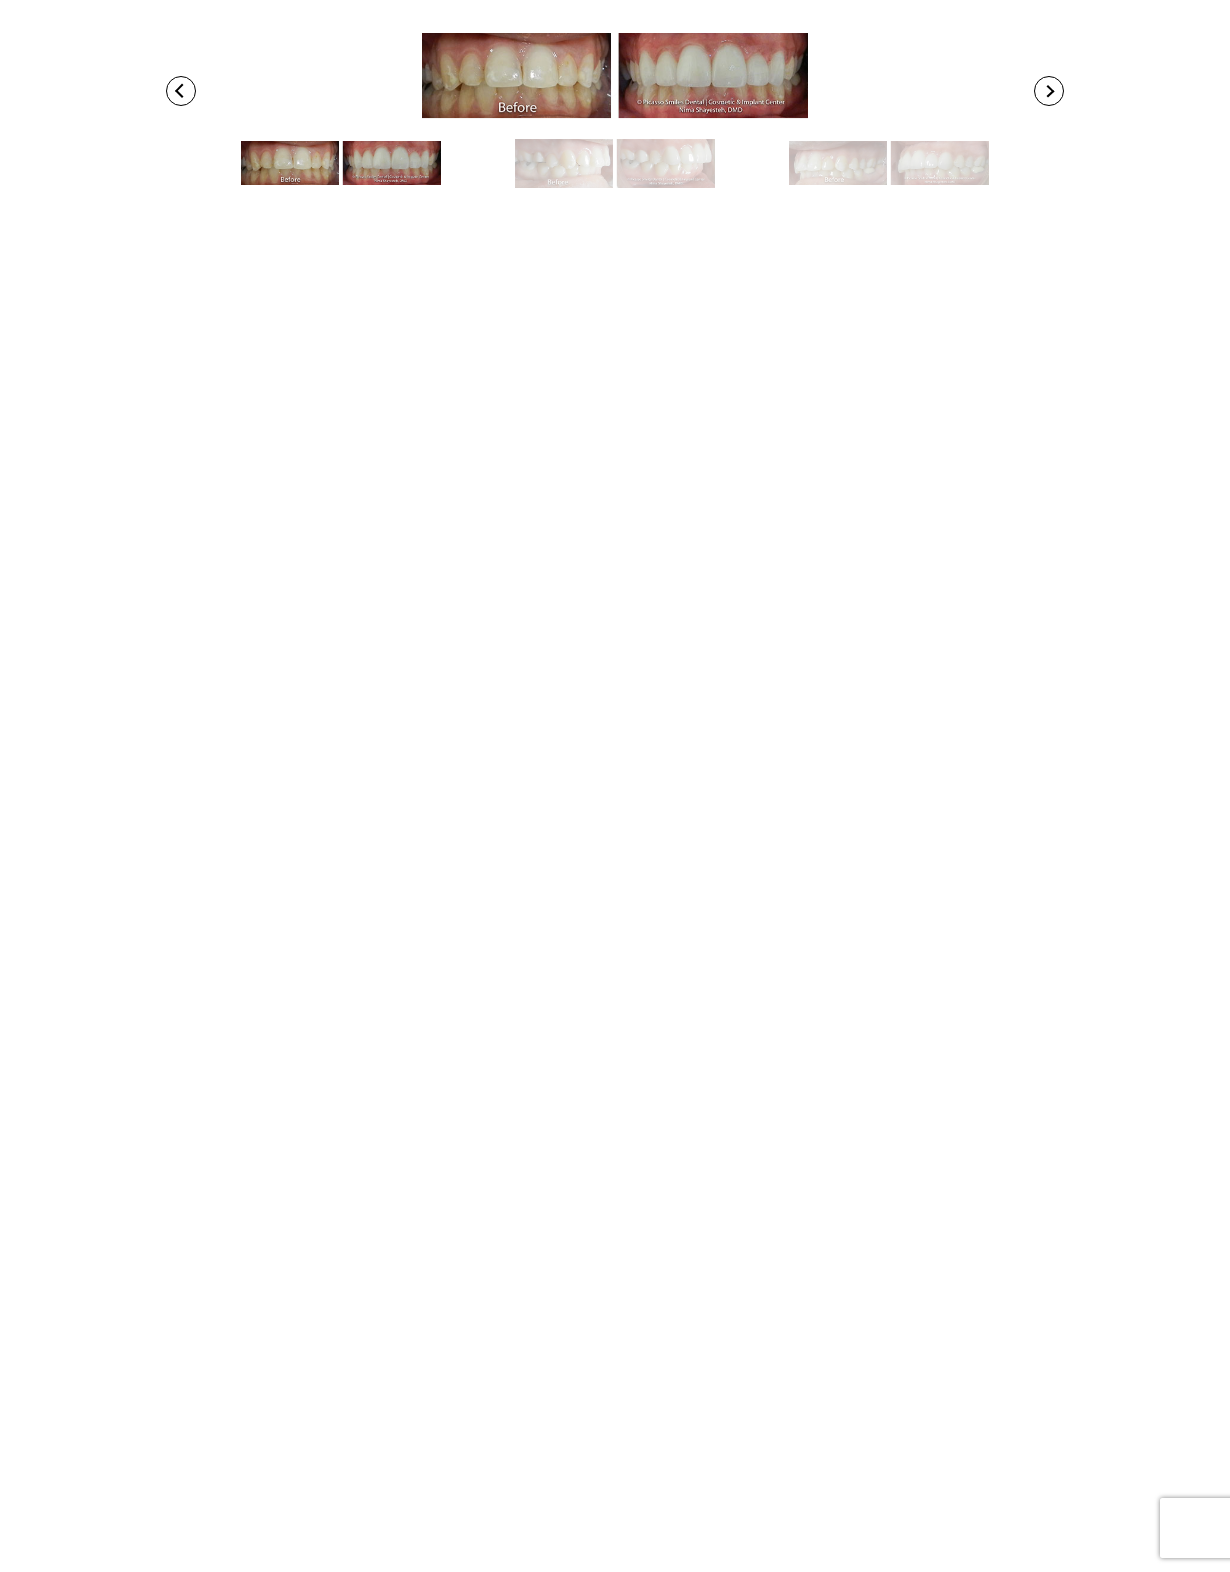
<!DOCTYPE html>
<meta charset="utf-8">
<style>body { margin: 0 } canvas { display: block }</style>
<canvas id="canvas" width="1230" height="1572"></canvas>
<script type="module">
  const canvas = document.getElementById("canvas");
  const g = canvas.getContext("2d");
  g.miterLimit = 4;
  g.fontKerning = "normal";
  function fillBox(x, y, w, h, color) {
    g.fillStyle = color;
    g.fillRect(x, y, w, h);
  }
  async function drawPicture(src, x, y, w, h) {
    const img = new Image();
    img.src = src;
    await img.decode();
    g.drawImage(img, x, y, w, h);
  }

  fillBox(0, 0, 1230, 1572, "#FFFFFF");
  g.beginPath();
  g.arc(181, 91, 14.5, 0, Math.PI * 2);
  g.strokeStyle = "#000000";
  g.stroke();
  g.fillStyle = "#000000";
  g.beginPath();
  g.moveTo(176.5, 89.5);
  g.lineTo(183.5, 96.5);
  g.lineTo(182, 98);
  g.lineTo(175, 91);
  g.closePath();
  g.fill();
  g.beginPath();
  g.moveTo(182, 83.5);
  g.lineTo(183.5, 85);
  g.lineTo(176.5, 92);
  g.lineTo(175, 91);
  g.closePath();
  g.fill();
  await drawPicture("pic1.png", 422, 33, 386, 86);
  g.beginPath();
  g.arc(1049, 91, 14.5, 0, Math.PI * 2);
  g.stroke();
  g.beginPath();
  g.moveTo(1048, 85);
  g.lineTo(1054.5, 91.5);
  g.lineTo(1053, 92.5);
  g.lineTo(1046.5, 86.5);
  g.closePath();
  g.fill();
  g.beginPath();
  g.moveTo(1053, 90);
  g.lineTo(1054.5, 91.5);
  g.lineTo(1048, 97.5);
  g.lineTo(1046.5, 96);
  g.closePath();
  g.fill();
  await drawPicture("pic2.png", 241, 141, 200, 44);
  await drawPicture("pic3.png", 515, 139, 200, 49);
  await drawPicture("pic4.png", 789, 141, 200, 44);
  g.save();
  g.beginPath();
  g.moveTo(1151, 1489);
  g.lineTo(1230, 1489);
  g.lineTo(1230, 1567);
  g.lineTo(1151, 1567);
  g.closePath();
  g.moveTo(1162, 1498);
  g.lineTo(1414, 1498);
  g.bezierCurveTo(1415, 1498, 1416, 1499, 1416, 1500);
  g.lineTo(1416, 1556);
  g.bezierCurveTo(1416, 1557, 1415, 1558, 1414, 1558);
  g.lineTo(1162, 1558);
  g.bezierCurveTo(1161, 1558, 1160, 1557, 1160, 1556);
  g.lineTo(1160, 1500);
  g.bezierCurveTo(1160, 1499, 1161, 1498, 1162, 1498);
  g.closePath();
  g.clip("evenodd");
  g.fillStyle = "#808080";
  g.filter = "blur(2.5px)";
  g.beginPath();
  g.roundRect(1160, 1498, 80, 60, 2);
  g.fill();
  g.filter = "none";
  g.restore();
</script>
